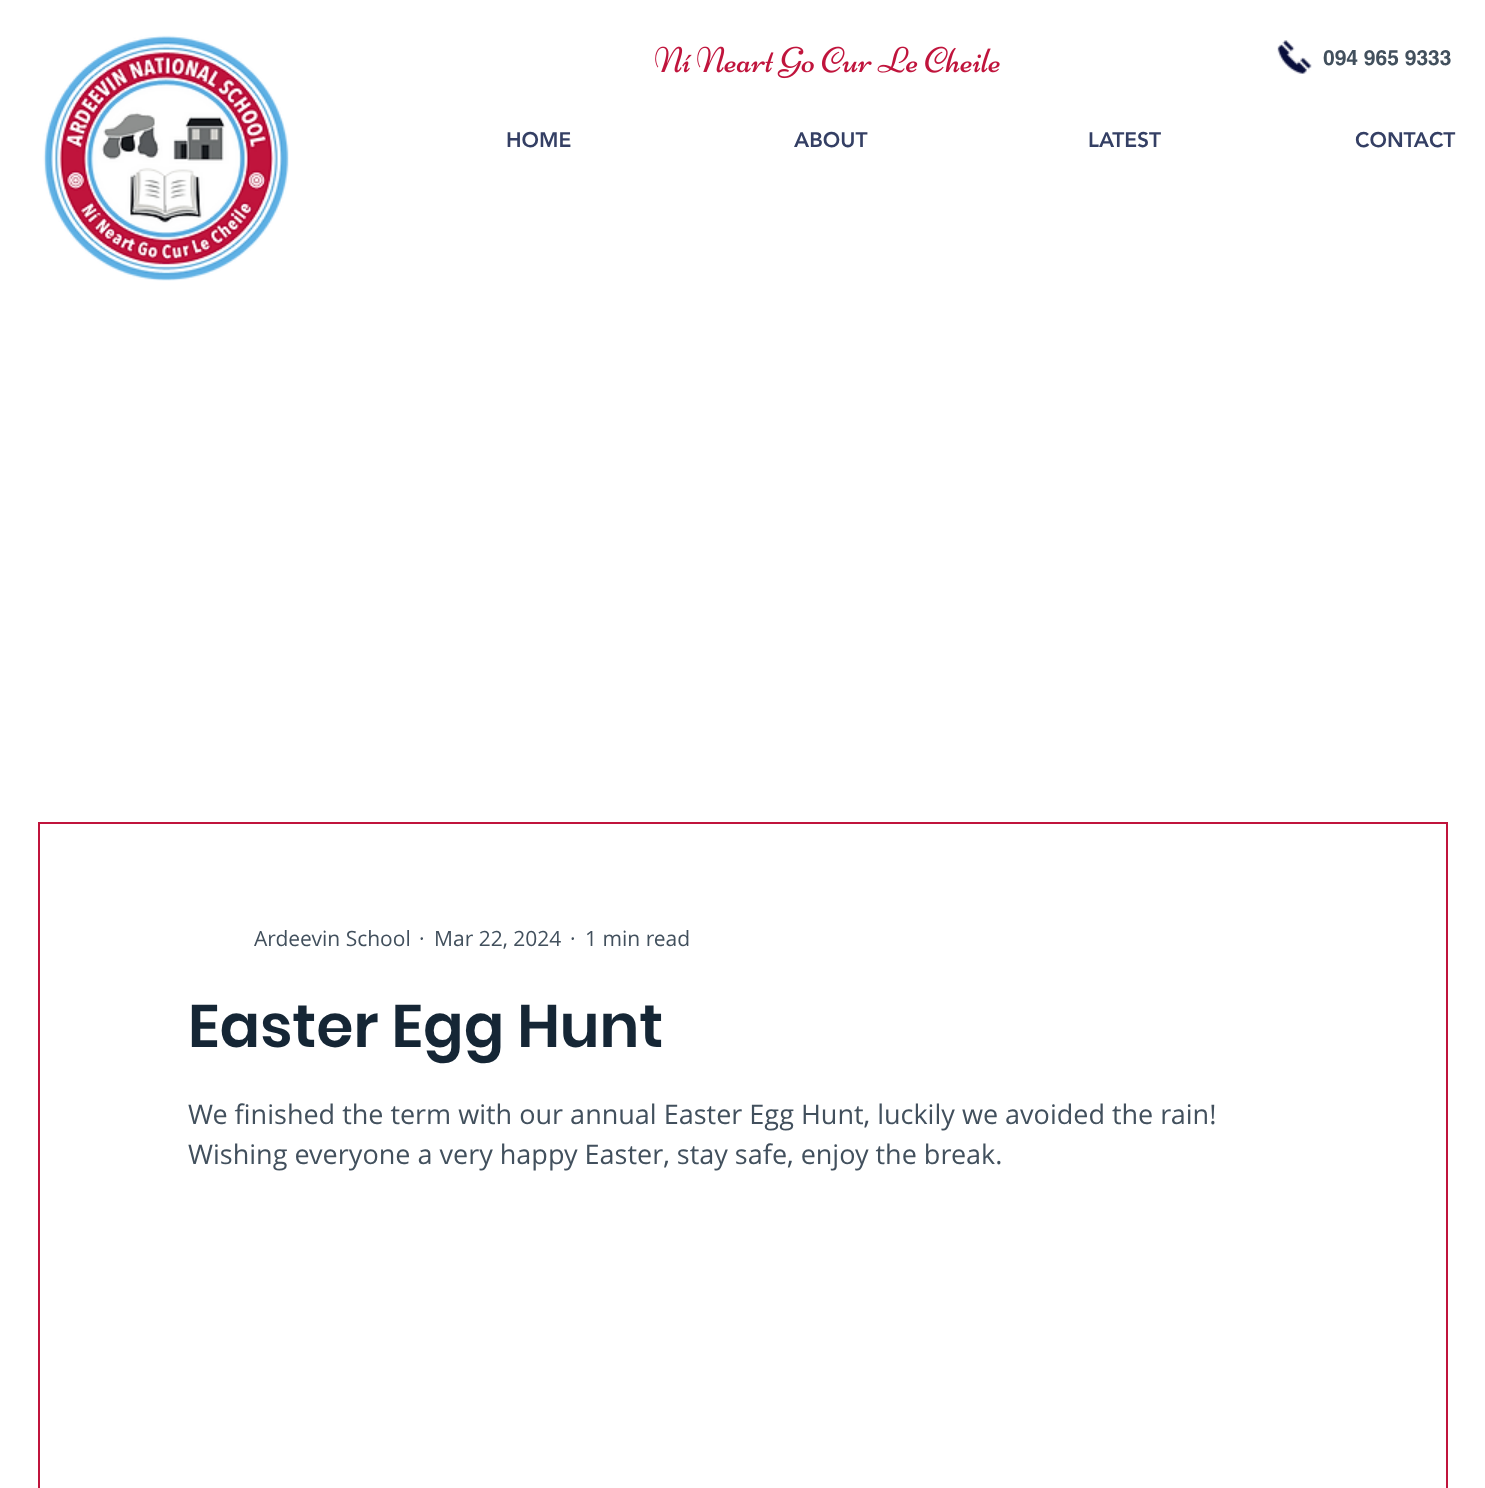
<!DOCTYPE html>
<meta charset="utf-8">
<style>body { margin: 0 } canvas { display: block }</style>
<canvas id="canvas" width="1485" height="1488"></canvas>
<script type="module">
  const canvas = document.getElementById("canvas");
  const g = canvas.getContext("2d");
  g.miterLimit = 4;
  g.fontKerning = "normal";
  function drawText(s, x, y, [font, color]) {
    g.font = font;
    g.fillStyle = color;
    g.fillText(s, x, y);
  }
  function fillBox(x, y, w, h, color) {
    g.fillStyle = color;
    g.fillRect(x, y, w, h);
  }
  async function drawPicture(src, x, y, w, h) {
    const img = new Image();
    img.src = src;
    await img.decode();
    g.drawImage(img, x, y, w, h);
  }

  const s1 = ["bold 21px helvetica", "#42505D"];
  const s2 = ["900 21px 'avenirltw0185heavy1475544'", "#343F64"];
  const s3 = ["21px Open Sans", "#42505D"];
  const s4 = ["600 60px Poppins", "#152635"];
  const s5 = ["27px Open Sans", "#42505D"];

  fillBox(0, 0, 1485, 1488, "#FFFFFF");
  await drawPicture("pic1.png", 43, 35, 246, 246);
  await drawPicture("pic2.png", 655, 46, 345, 33);
  await drawPicture("pic3.png", 1277, 40, 35, 34);
  drawText("094 965 9333", 1323, 65, s1);
  drawText("HOME", 506, 147, s2);
  drawText("ABOUT", 794, 147, s2);
  drawText("LATEST", 1088, 147, s2);
  drawText("CONTACT", 1355, 147, s2);
  g.strokeStyle = "#C0143C";
  g.lineWidth = 2;
  g.strokeRect(39, 823, 1408, 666);
  drawText("Ardeevin School", 254, 946, s3);
  drawText("·", 419, 946, s3);
  drawText("Mar 22, 2024", 434, 946, s3);
  drawText("·", 570, 946, s3);
  drawText("1 min read", 585, 946, s3);
  drawText("Easter Egg Hunt", 188, 1047, s4);
  drawText("We finished the term with our annual Easter Egg Hunt, luckily we avoided the rain!", 188, 1124, s5);
  drawText("Wishing everyone a very happy Easter, stay safe, enjoy the break.", 188, 1164, s5);
</script>
